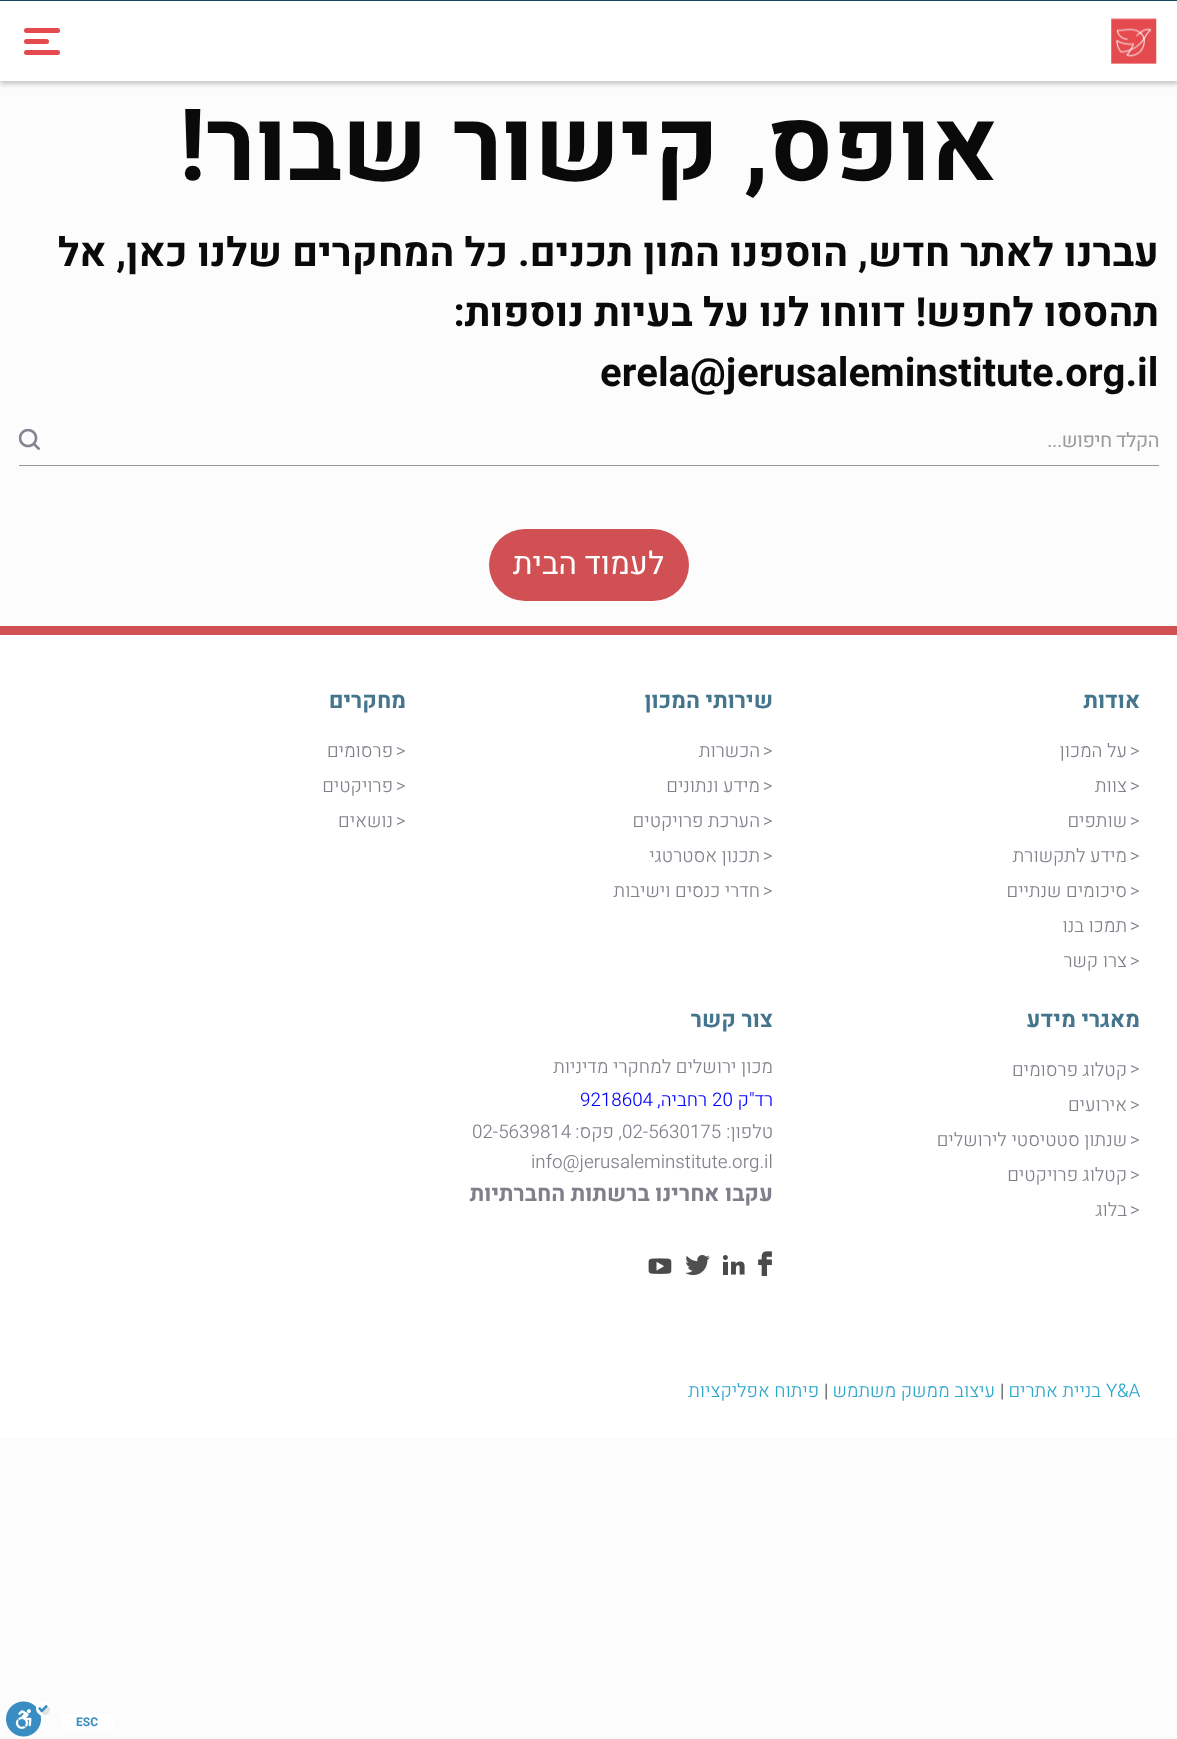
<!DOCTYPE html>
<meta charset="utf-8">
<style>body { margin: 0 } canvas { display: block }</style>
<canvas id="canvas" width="1177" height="1739"></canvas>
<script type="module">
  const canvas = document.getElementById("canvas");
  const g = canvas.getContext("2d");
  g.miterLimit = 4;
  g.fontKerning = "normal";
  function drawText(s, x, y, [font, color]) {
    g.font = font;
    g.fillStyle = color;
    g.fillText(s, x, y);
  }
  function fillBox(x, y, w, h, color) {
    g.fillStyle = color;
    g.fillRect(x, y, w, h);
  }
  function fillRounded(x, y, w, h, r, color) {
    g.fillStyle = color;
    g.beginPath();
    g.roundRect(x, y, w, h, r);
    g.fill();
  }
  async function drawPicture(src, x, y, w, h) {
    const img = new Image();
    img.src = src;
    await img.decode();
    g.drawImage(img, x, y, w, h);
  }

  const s1 = ["bold 100px Heebo", "#0A0A0A"];
  const s2 = ["bold 40px Heebo", "#0A0A0A"];
  const s3 = ["20px Heebo", "#9B9B9B"];
  const s4 = ["31.25px Heebo", "#FFFFFF"];
  const s5 = ["bold 22.5px Heebo", "#44758D"];
  const s6 = ["300 18.75px Heebo", "#80808B"];
  const s7 = ["300 18.75px Heebo", "#0000FF"];
  const s8 = ["bold 22.5px Heebo", "#80808B"];
  const s9 = ["300 18.75px Heebo", "#2BA6CB"];
  const s10 = ["300 18.75px Heebo", "#3B3B3B"];
  const s11 = ["bold 12px Heebo", "#3A8DC2"];

  fillBox(0, 0, 1177, 1739, "#FCFCFD");
  g.fillStyle = "rgba(0, 0, 0, 0.22)";
  g.filter = "blur(2.5px)";
  g.beginPath();
  g.rect(0, 3, 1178, 81);
  g.fill();
  g.filter = "none";
  fillBox(0, 1, 1177, 80, "#FFFFFF");
  await drawPicture("pic1.png", 1111, 18, 46, 46);
  fillRounded(24, 28, 36, 5, 2.5, "#E44A4E");
  fillRounded(24, 50, 36, 5, 2.5, "#E44A4E");
  fillRounded(24, 39, 25, 5, 2.5, "#E44A4E");
  g.direction = "rtl";
  drawText("אופס, קישור שבור!", 998, 180, s1);
  drawText("עברנו לאתר חדש, הוספנו המון תכנים. כל המחקרים שלנו כאן, אל", 1159, 266, s2);
  drawText("תהססו לחפש! דווחו לנו על בעיות נוספות:", 1159, 326, s2);
  g.direction = "ltr";
  drawText("erela@jerusaleminstitute.org.il", 600, 386, s2);
  fillBox(19, 465, 1140, 1, "#979797");
  g.letterSpacing = "-0.5px";
  g.direction = "rtl";
  drawText("הקלד חיפוש...", 1159, 447, s3);
  await drawPicture("pic2.png", 19, 429, 21, 21);
  fillRounded(489, 529, 200, 72, 36, "#D15053");
  g.letterSpacing = "0px";
  drawText("לעמוד הבית", 664, 574, s4);
  fillBox(0, 635, 1177, 803, "#FFFFFF");
  fillBox(0, 626, 1177, 9, "#D15053");
  drawText("אודות", 1140, 708, s5);
  g.direction = "ltr";
  drawText(">", 1130, 757, s6);
  g.direction = "rtl";
  drawText("על המכון", 1127, 757, s6);
  g.direction = "ltr";
  drawText(">", 1130, 792, s6);
  g.direction = "rtl";
  drawText("צוות", 1127, 792, s6);
  g.direction = "ltr";
  drawText(">", 1130, 827, s6);
  g.direction = "rtl";
  drawText("שותפים", 1127, 827, s6);
  g.direction = "ltr";
  drawText(">", 1130, 862, s6);
  g.direction = "rtl";
  drawText("מידע לתקשורת", 1127, 862, s6);
  g.direction = "ltr";
  drawText(">", 1130, 897, s6);
  g.direction = "rtl";
  drawText("סיכומים שנתיים", 1127, 897, s6);
  g.direction = "ltr";
  drawText(">", 1130, 932, s6);
  g.direction = "rtl";
  drawText("תמכו בנו", 1127, 932, s6);
  g.direction = "ltr";
  drawText(">", 1130, 967, s6);
  g.direction = "rtl";
  drawText("צרו קשר", 1127, 967, s6);
  drawText("שירותי המכון", 773, 708, s5);
  g.direction = "ltr";
  drawText(">", 763, 757, s6);
  g.direction = "rtl";
  drawText("הכשרות", 760, 757, s6);
  g.direction = "ltr";
  drawText(">", 763, 792, s6);
  g.direction = "rtl";
  drawText("מידע ונתונים", 760, 792, s6);
  g.direction = "ltr";
  drawText(">", 763, 827, s6);
  g.direction = "rtl";
  drawText("הערכת פרויקטים", 760, 827, s6);
  g.direction = "ltr";
  drawText(">", 763, 862, s6);
  g.direction = "rtl";
  drawText("תכנון אסטרטגי", 760, 862, s6);
  g.direction = "ltr";
  drawText(">", 763, 897, s6);
  g.direction = "rtl";
  drawText("חדרי כנסים וישיבות", 760, 897, s6);
  drawText("מחקרים", 406, 708, s5);
  g.direction = "ltr";
  drawText(">", 396, 757, s6);
  g.direction = "rtl";
  drawText("פרסומים", 393, 757, s6);
  g.direction = "ltr";
  drawText(">", 396, 792, s6);
  g.direction = "rtl";
  drawText("פרויקטים", 393, 792, s6);
  g.direction = "ltr";
  drawText(">", 396, 827, s6);
  g.direction = "rtl";
  drawText("נושאים", 393, 827, s6);
  drawText("מאגרי מידע", 1140, 1027, s5);
  g.direction = "ltr";
  drawText(">", 1130, 1075, s6);
  g.direction = "rtl";
  drawText("קטלוג פרסומים", 1127, 1076, s6);
  g.direction = "ltr";
  drawText(">", 1130, 1111, s6);
  g.direction = "rtl";
  drawText("אירועים", 1127, 1111, s6);
  g.direction = "ltr";
  drawText(">", 1130, 1146, s6);
  g.direction = "rtl";
  drawText("שנתון סטטיסטי לירושלים", 1127, 1146, s6);
  g.direction = "ltr";
  drawText(">", 1130, 1181, s6);
  g.direction = "rtl";
  drawText("קטלוג פרויקטים", 1127, 1181, s6);
  g.direction = "ltr";
  drawText(">", 1130, 1216, s6);
  g.direction = "rtl";
  drawText("בלוג", 1127, 1216, s6);
  drawText("צור קשר", 773, 1027, s5);
  drawText("מכון ירושלים למחקרי מדיניות", 773, 1073, s6);
  drawText("רד\"ק", 773, 1106, s7);
  g.direction = "ltr";
  drawText("20", 712, 1106, s7);
  g.direction = "rtl";
  drawText("רחביה,", 707, 1106, s7);
  g.direction = "ltr";
  drawText("9218604", 580, 1106, s7);
  g.direction = "rtl";
  drawText("טלפון:", 773, 1138, s6);
  g.direction = "ltr";
  drawText("02-5630175", 622, 1138, s6);
  g.direction = "rtl";
  drawText(", פקס:", 622, 1138, s6);
  g.direction = "ltr";
  drawText("02-5639814", 472, 1138, s6);
  drawText("info@jerusaleminstitute.org.il", 531, 1168, s6);
  g.direction = "rtl";
  drawText("עקבו אחרינו ברשתות החברתיות", 773, 1201, s8);
  await drawPicture("pic3.png", 758, 1251, 14, 25);
  await drawPicture("pic4.png", 723, 1255, 22, 20);
  await drawPicture("pic5.png", 685, 1255, 25, 20);
  await drawPicture("pic6.png", 648, 1258, 24, 16);
  g.direction = "ltr";
  drawText("Y&A", 1106, 1397, s9);
  g.direction = "rtl";
  drawText("בניית אתרים", 1101, 1397, s9);
  g.direction = "ltr";
  drawText("|", 1000, 1397, s10);
  g.direction = "rtl";
  drawText("עיצוב ממשק משתמש", 995, 1397, s9);
  g.direction = "ltr";
  drawText("|", 824, 1397, s10);
  g.direction = "rtl";
  drawText("פיתוח אפליקציות", 819, 1397, s9);
  fillBox(0, 0, 1177, 1, "#15495F");
  fillRounded(61, 1714, 53, 17, 5, "#FFFFFF");
  g.direction = "ltr";
  drawText("ESC", 76, 1726, s11);
  await drawPicture("pic7.png", 6, 1701, 44, 36);
</script>
